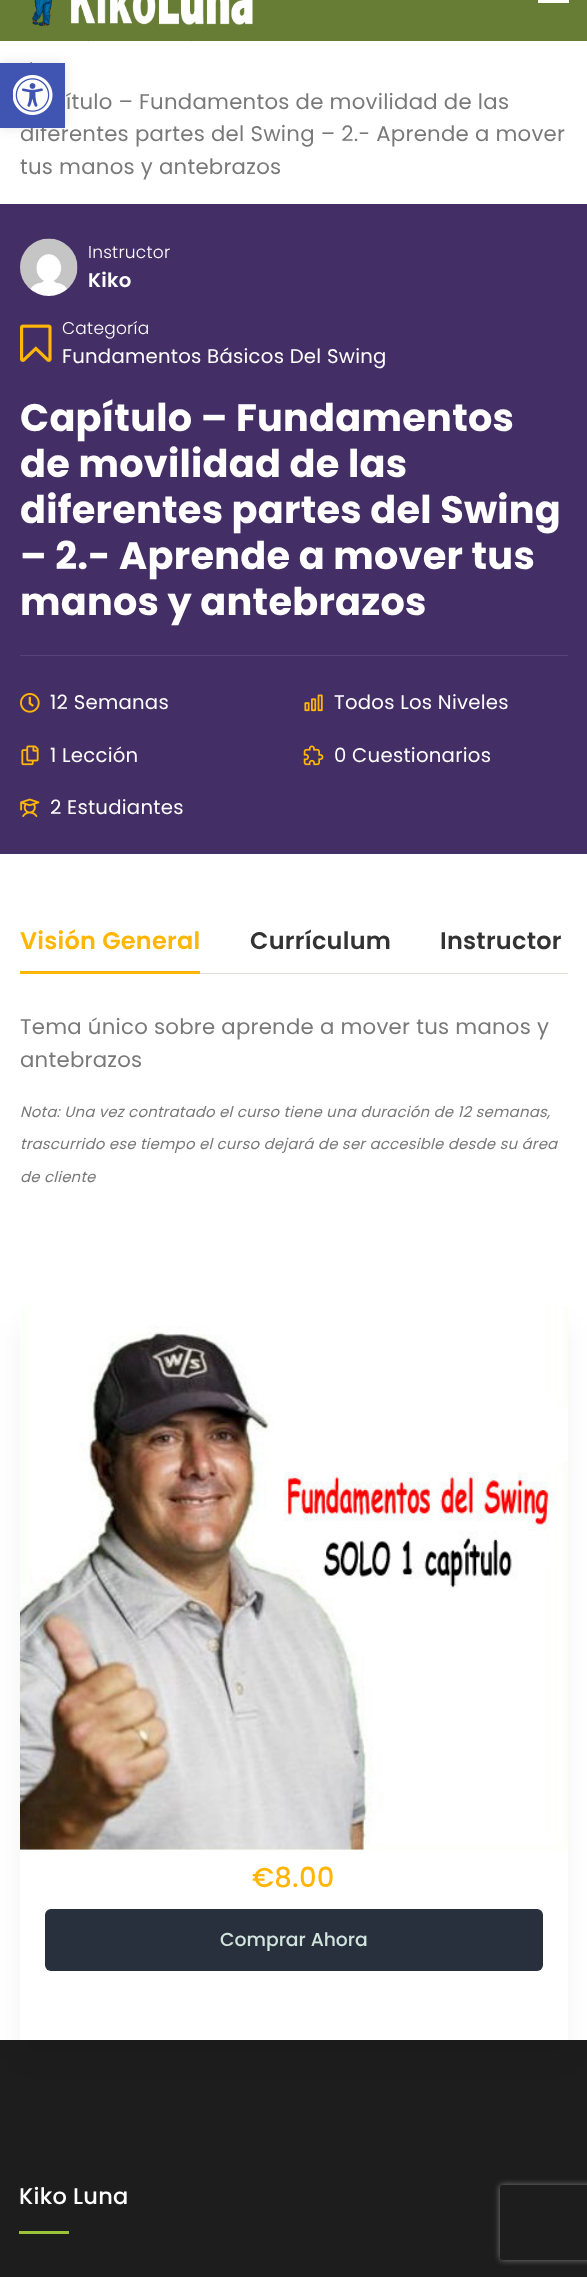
<!DOCTYPE html>
<meta charset="utf-8">
<style>body { margin: 0 } canvas { display: block }</style>
<canvas id="canvas" width="587" height="2277"></canvas>
<script type="module">
  const canvas = document.getElementById("canvas");
  const g = canvas.getContext("2d");
  g.miterLimit = 4;
  g.fontKerning = "normal";
  function drawText(s, x, y, [font, color]) {
    g.font = font;
    g.fillStyle = color;
    g.fillText(s, x, y);
  }
  function fillBox(x, y, w, h, color) {
    g.fillStyle = color;
    g.fillRect(x, y, w, h);
  }
  function fillRounded(x, y, w, h, r, color) {
    g.fillStyle = color;
    g.beginPath();
    g.roundRect(x, y, w, h, r);
    g.fill();
  }
  async function drawPicture(src, x, y, w, h) {
    const img = new Image();
    img.src = src;
    await img.decode();
    g.drawImage(img, x, y, w, h);
  }

  const s1 = ["21.25px Poppins", "#797979"];
  const s2 = ["300 17px Poppins", "#FFFFFF"];
  const s3 = ["600 19.7px Poppins", "#FFFFFF"];
  const s4 = ["19.7px Poppins", "#FFFFFF"];
  const s5 = ["bold 38.25px Poppins", "#FFFFFF"];
  const s6 = ["600 24px Poppins", "#FFB606"];
  const s7 = ["600 24px Poppins", "#333333"];
  const s8 = ["italic 14.9px Poppins", "#797979"];
  const s9 = ["500 27.5px Poppins", "#FFB606"];
  const s10 = ["500 18.75px Poppins", "#D1E4DD"];
  const s11 = ["500 22.5px Poppins", "#FFFFFF"];

  fillBox(0, 0, 587, 2277, "#FFFFFF");
  await drawPicture("pic5.png", 30, 62, 3, 1);
  g.fillStyle = "rgba(0, 0, 0, 0.1)";
  g.filter = "blur(6px)";
  g.beginPath();
  g.rect(0, 63, 65, 65);
  g.fill();
  g.filter = "none";
  g.letterSpacing = "0.25px";
  drawText("diferentes partes del Swing – 2.- Aprende a mover", 20, 141, s1);
  fillBox(0, 63, 65, 65, "#4054B2");
  await drawPicture("pic1.png", 13, 75, 40, 40);
  fillBox(0, 0, 587, 41, "#677C35");
  await drawPicture("pic2.png", 32, 0, 221, 27);
  fillBox(538, 0, 31, 3, "#FFFFFF");
  await drawPicture("pic3.png", 88, 41, 1, 1);
  await drawPicture("pic4.png", 190, 41, 2, 1);
  drawText("ítulo – Fundamentos de movilidad de las", 66, 109, s1);
  drawText("tus manos y antebrazos", 20, 174, s1);
  fillBox(0, 204, 587, 650, "#442E66");
  await drawPicture("pic6.png", 20, 238, 58, 58);
  drawText("Instructor", 88, 258, s2);
  drawText("Kiko", 88, 287, s3);
  await drawPicture("pic7.png", 20, 324, 32, 38);
  drawText("Categoría", 62, 334, s2);
  drawText("Fundamentos Básicos Del Swing", 62, 363, s4);
  fillBox(20, 655, 548, 1, "#574375");
  drawText("Capítulo – Fundamentos", 20, 431, s5);
  drawText("de movilidad de las", 20, 477, s5);
  drawText("diferentes partes del Swing", 20, 523, s5);
  drawText("– 2.- Aprende a mover tus", 20, 569, s5);
  drawText("manos y antebrazos", 20, 615, s5);
  await drawPicture("pic8.png", 20, 693, 20, 20);
  drawText("12 Semanas", 50, 709, s4);
  await drawPicture("pic9.png", 304, 694, 19, 18);
  drawText("Todos Los Niveles", 334, 709, s4);
  await drawPicture("pic10.png", 21, 745, 18, 21);
  drawText("1 Lección", 50, 762, s4);
  await drawPicture("pic11.png", 303, 745, 21, 21);
  drawText("0 Cuestionarios", 334, 762, s4);
  await drawPicture("pic12.png", 20, 798, 20, 19);
  drawText("2 Estudiantes", 50, 814, s4);
  fillBox(200, 973, 368, 1, "#E2E0DB");
  drawText("Visión General", 20, 949, s6);
  fillBox(20, 971, 180, 3, "#FFB606");
  drawText("Currículum", 250, 949, s7);
  drawText("Instructor", 440, 949, s7);
  drawText("Tema único sobre aprende a mover tus manos y", 20, 1034, s1);
  drawText("antebrazos", 20, 1067, s1);
  drawText("Nota: Una vez contratado el curso tiene una duración de 12 semanas,", 20, 1117, s8);
  drawText("trascurrido ese tiempo el curso dejará de ser accesible desde su área", 20, 1149, s8);
  drawText("de cliente", 20, 1182, s8);
  fillBox(0, 2040, 587, 237, "#1D1D1D");
  g.fillStyle = "rgba(0, 0, 0, 0.05)";
  g.filter = "blur(12.5px)";
  g.beginPath();
  g.rect(20, 1325, 548, 734);
  g.fill();
  g.filter = "none";
  fillBox(20, 1315, 548, 725, "#FFFFFF");
  await drawPicture("pic13.png", 20, 1306, 548, 544);
  drawText("€8.00", 252, 1887, s9);
  fillRounded(45, 1909, 498, 62, 6, "#28303D");
  g.letterSpacing = "0px";
  drawText("Comprar Ahora", 220, 1946, s10);
  g.letterSpacing = "0.25px";
  drawText("Kiko Luna", 19, 2204, s11);
  fillBox(19, 2231, 50, 3, "#9AC339");
  g.save();
  g.beginPath();
  g.moveTo(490, 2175);
  g.lineTo(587, 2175);
  g.lineTo(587, 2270);
  g.lineTo(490, 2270);
  g.closePath();
  g.moveTo(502.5, 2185);
  g.lineTo(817.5, 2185);
  g.bezierCurveTo(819, 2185, 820, 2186, 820, 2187.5);
  g.lineTo(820, 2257.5);
  g.bezierCurveTo(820, 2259, 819, 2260, 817.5, 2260);
  g.lineTo(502.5, 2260);
  g.bezierCurveTo(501, 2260, 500, 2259, 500, 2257.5);
  g.lineTo(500, 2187.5);
  g.bezierCurveTo(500, 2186, 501, 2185, 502.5, 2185);
  g.closePath();
  g.clip("evenodd");
  g.fillStyle = "#808080";
  g.filter = "blur(3px)";
  g.beginPath();
  g.roundRect(500, 2185, 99, 75, 2.5);
  g.fill();
  g.filter = "none";
  g.restore();
</script>
